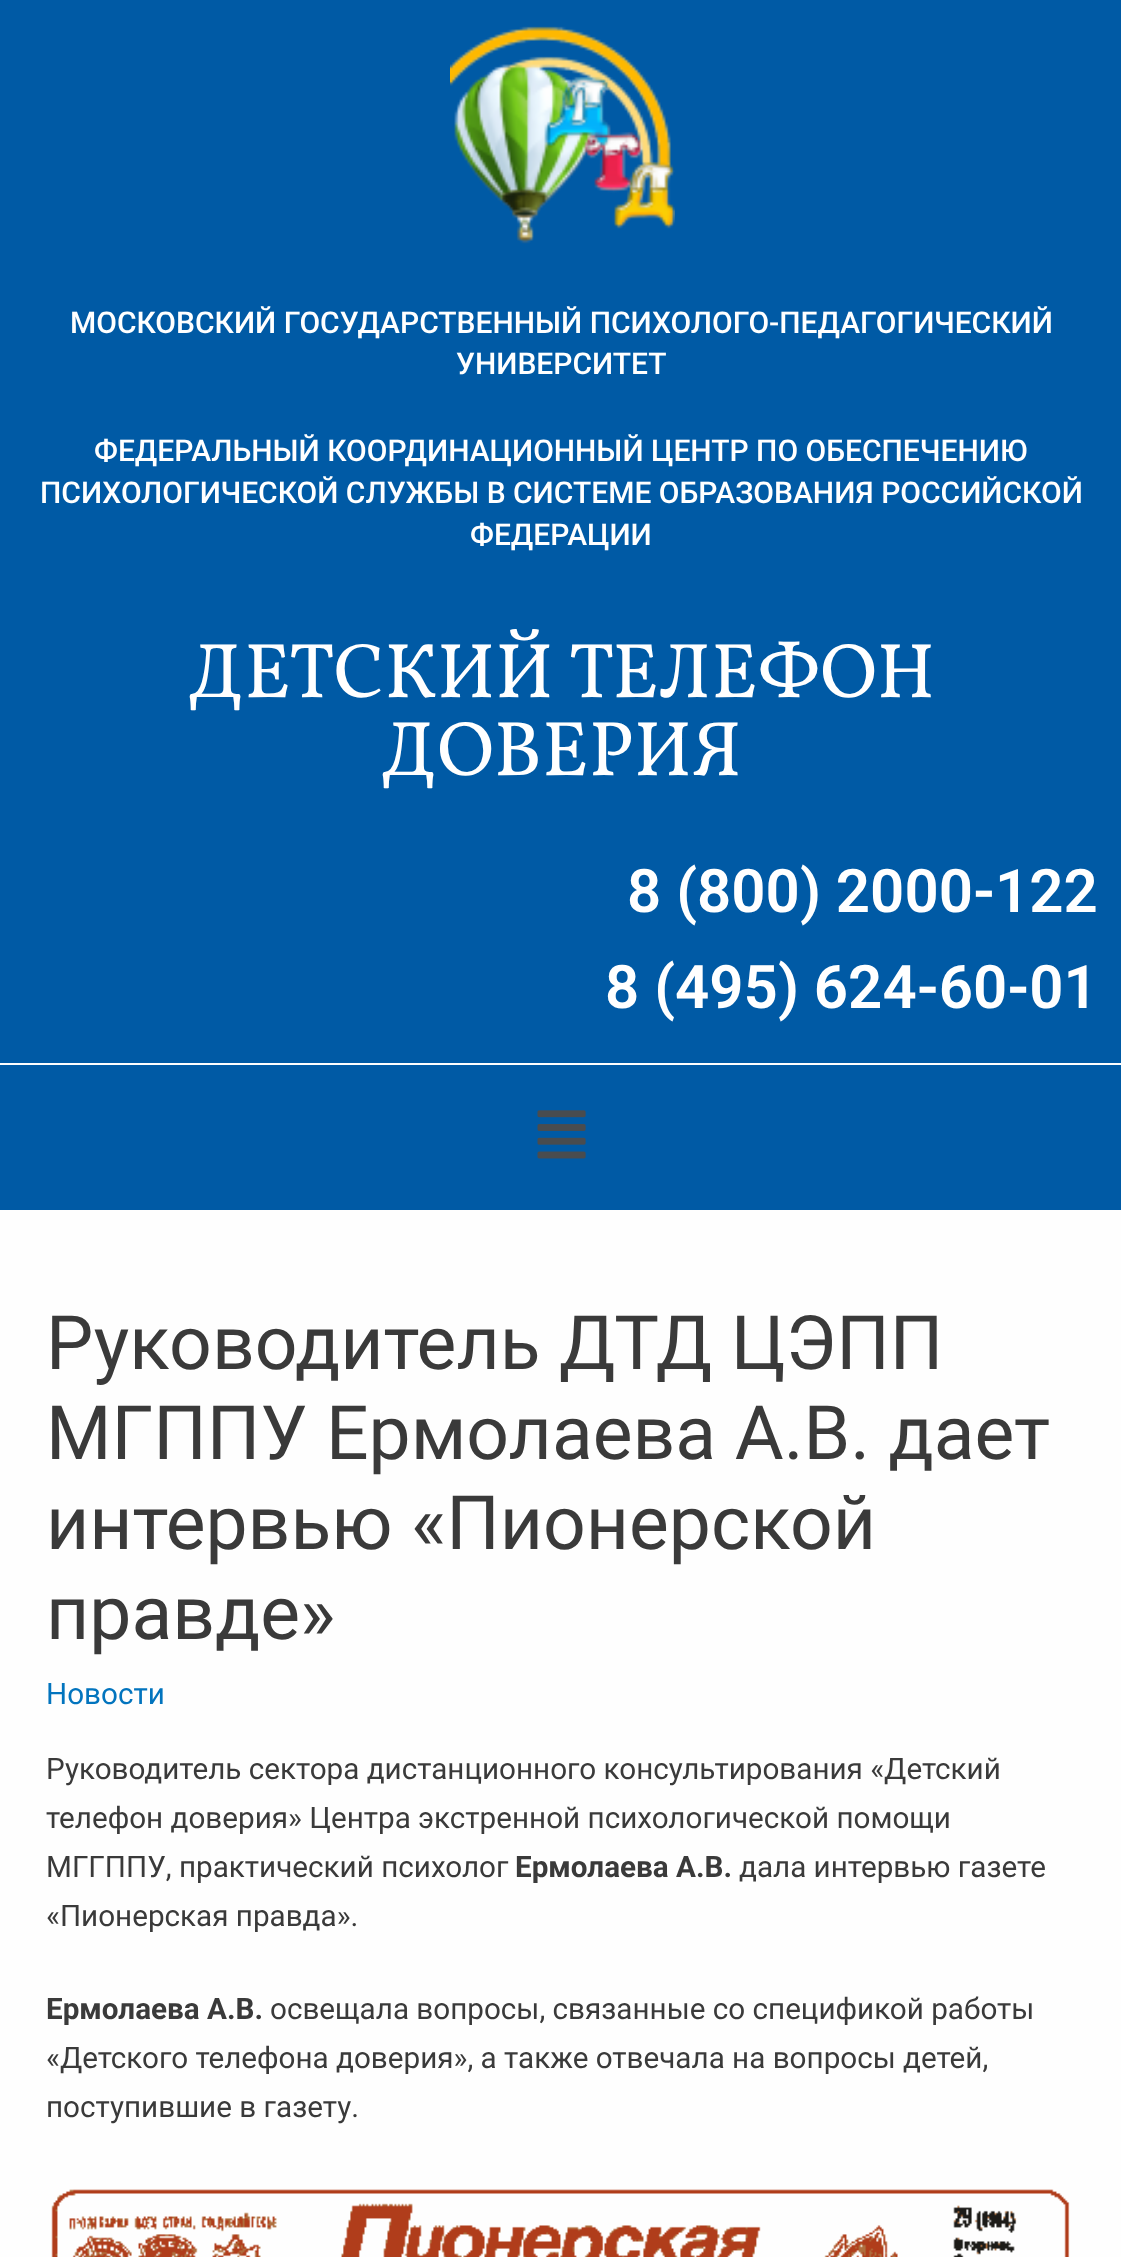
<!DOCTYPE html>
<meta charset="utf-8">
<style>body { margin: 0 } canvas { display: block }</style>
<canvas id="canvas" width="1121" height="2257"></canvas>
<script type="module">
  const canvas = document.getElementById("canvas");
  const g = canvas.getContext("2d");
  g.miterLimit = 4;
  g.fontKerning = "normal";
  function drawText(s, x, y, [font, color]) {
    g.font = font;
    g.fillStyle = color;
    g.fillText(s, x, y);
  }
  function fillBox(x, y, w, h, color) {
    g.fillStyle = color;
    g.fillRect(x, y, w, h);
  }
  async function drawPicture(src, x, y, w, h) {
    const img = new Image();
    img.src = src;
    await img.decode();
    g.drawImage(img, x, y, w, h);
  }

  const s1 = ["500 30px Roboto", "#FFFFFF"];
  const s2 = ["77.5px Vollkorn SC", "#FFFFFF"];
  const s3 = ["600 60px Roboto", "#FFFFFF"];
  const s4 = ["75px Roboto", "#3A3A3A"];
  const s5 = ["29.65px Roboto", "#0274BE"];
  const s6 = ["29.65px Roboto", "#3A3A3A"];
  const s7 = ["bold 29.65px Roboto", "#3A3A3A"];

  fillBox(0, 0, 1121, 2257, "#FEFEFE");
  fillBox(0, 0, 1121, 1063, "#005AA5");
  await drawPicture("pic1.png", 450, 26, 225, 218);
  drawText("МОСКОВСКИЙ ГОСУДАРСТВЕННЫЙ ПСИХОЛОГО-ПЕДАГОГИЧЕСКИЙ", 70, 333, s1);
  drawText("УНИВЕРСИТЕТ", 456, 374, s1);
  drawText("ФЕДЕРАЛЬНЫЙ КООРДИНАЦИОННЫЙ ЦЕНТР ПО ОБЕСПЕЧЕНИЮ", 94, 461, s1);
  drawText("ПСИХОЛОГИЧЕСКОЙ СЛУЖБЫ В СИСТЕМЕ ОБРАЗОВАНИЯ РОССИЙСКОЙ", 40, 503, s1);
  drawText("ФЕДЕРАЦИИ", 470, 545, s1);
  g.wordSpacing = "2px";
  drawText("ДЕТСКИЙ ТЕЛЕФОН", 188, 697, s2);
  g.wordSpacing = "0px";
  drawText("ДОВЕРИЯ", 381, 775, s2);
  drawText("8 (800) 2000-122", 627, 912, s3);
  drawText("8 (495) 624-60-01", 605, 1008, s3);
  fillBox(0, 1065, 1121, 145, "#005AA5");
  await drawPicture("pic2.png", 537, 1110, 49, 49);
  drawText("Руководитель ДТД ЦЭПП", 46, 1369, s4);
  drawText("МГППУ Ермолаева А.В. дает", 46, 1459, s4);
  drawText("интервью «Пионерской", 46, 1549, s4);
  drawText("правде»", 46, 1639, s4);
  drawText("Новости", 46, 1704, s5);
  drawText("Руководитель сектора дистанционного консультирования «Детский", 46, 1779, s6);
  drawText("телефон доверия» Центра экстренной психологической помощи", 46, 1828, s6);
  drawText("МГГППУ, практический психолог", 46, 1877, s6);
  drawText("Ермолаева А.В.", 515, 1877, s7);
  drawText("дала интервью газете", 739, 1877, s6);
  drawText("«Пионерская правда».", 46, 1926, s6);
  drawText("Ермолаева А.В.", 46, 2019, s7);
  drawText("освещала вопросы, связанные со спецификой работы", 270, 2019, s6);
  drawText("«Детского телефона доверия», а также отвечала на вопросы детей,", 46, 2068, s6);
  drawText("поступившие в газету.", 46, 2117, s6);
  await drawPicture("pic3.png", 51, 2189, 1019, 68);
</script>
